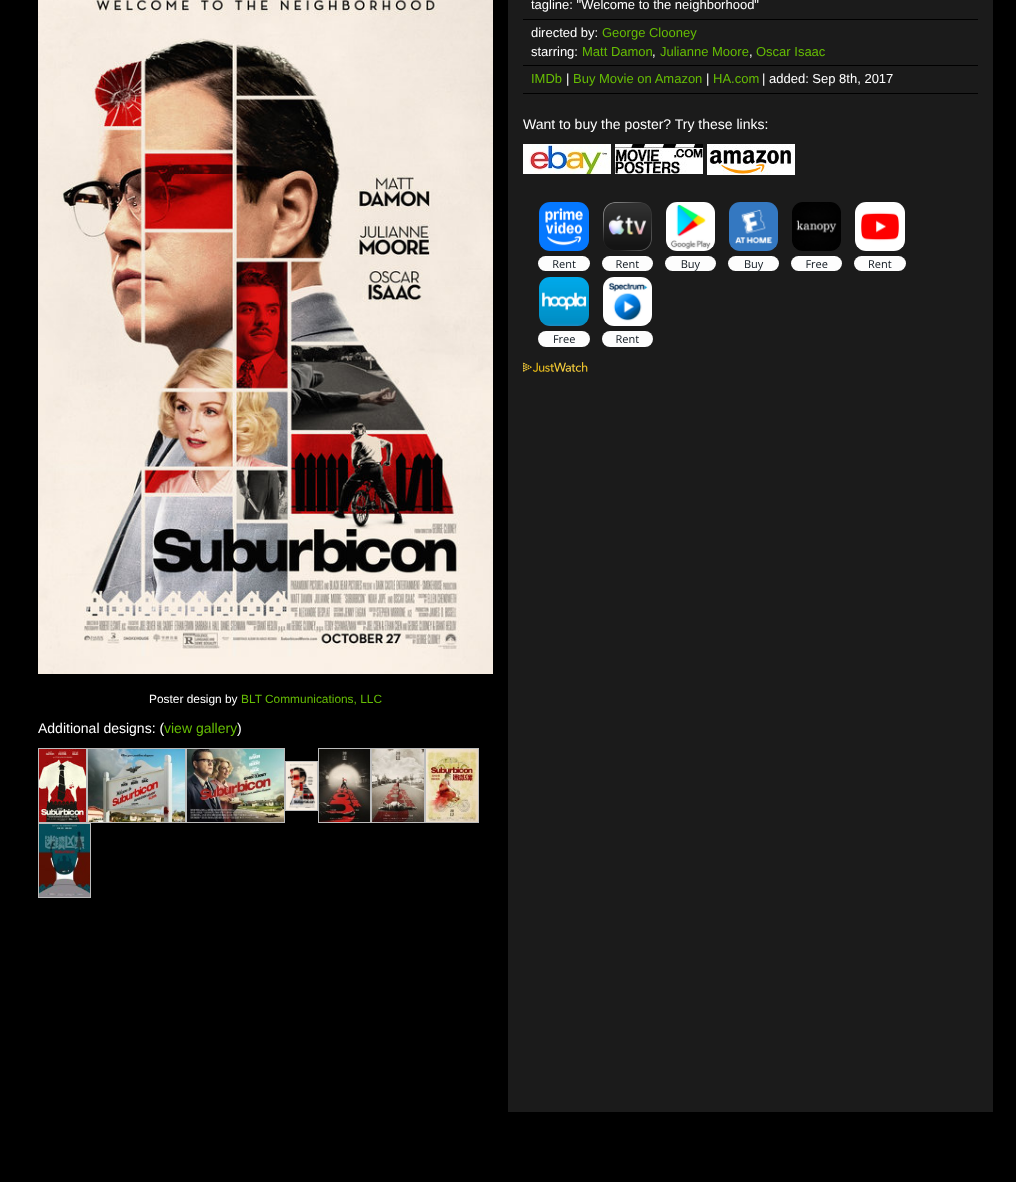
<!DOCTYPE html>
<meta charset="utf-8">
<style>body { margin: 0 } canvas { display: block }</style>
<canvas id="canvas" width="1016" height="1182"></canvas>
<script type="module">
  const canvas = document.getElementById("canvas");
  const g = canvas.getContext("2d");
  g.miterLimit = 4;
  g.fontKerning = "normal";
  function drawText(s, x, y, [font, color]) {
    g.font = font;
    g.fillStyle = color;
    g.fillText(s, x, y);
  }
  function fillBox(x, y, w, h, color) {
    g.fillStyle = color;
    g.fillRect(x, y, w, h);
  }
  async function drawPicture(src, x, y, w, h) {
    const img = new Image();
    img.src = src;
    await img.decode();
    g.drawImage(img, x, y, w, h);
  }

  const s1 = ["13px Liberation Sans", "#FFFFFF"];
  const s2 = ["13px Liberation Sans", "#66BD04"];
  const s3 = ["14px Liberation Sans", "#FFFFFF"];
  const s4 = ["11.9px Liberation Sans", "#FFFFFF"];
  const s5 = ["11.9px Liberation Sans", "#66BD04"];
  const s6 = ["14px Liberation Sans", "#66BD04"];

  fillBox(0, 0, 1016, 1182, "#000000");
  fillBox(508, 0, 485, 1112, "#1B1B1B");
  fillBox(523, 19, 455, 1, "#000000");
  drawText("tagline: \"Welcome to the neighborhood\"", 531, 9, s1);
  fillBox(523, 65, 455, 1, "#000000");
  drawText("directed by:", 531, 37, s1);
  drawText("George Clooney", 602, 37, s2);
  drawText("starring:", 531, 56, s1);
  drawText("Matt Damon", 582, 56, s2);
  drawText(",", 652, 56, s1);
  drawText("Julianne Moore", 660, 56, s2);
  drawText(",", 749, 56, s1);
  drawText("Oscar Isaac", 756, 56, s2);
  fillBox(523, 93, 455, 1, "#000000");
  drawText("IMDb", 531, 83, s2);
  drawText("|", 566, 83, s1);
  drawText("Buy Movie on Amazon", 573, 83, s2);
  drawText("|", 706, 83, s1);
  drawText("HA.com", 713, 83, s2);
  drawText("| added: Sep 8th, 2017", 762, 83, s1);
  drawText("Want to buy the poster? Try these links:", 523, 129, s3);
  await drawPicture("pic1.png", 523, 144, 88, 30);
  await drawPicture("pic2.png", 615, 144, 88, 30);
  await drawPicture("pic3.png", 707, 144, 88, 31);
  await drawPicture("pic4.png", 538, 202, 368, 145);
  await drawPicture("pic5.png", 523, 362, 65, 10);
  await drawPicture("pic6.png", 38, 0, 455, 674);
  drawText("Poster design by", 149, 703, s4);
  drawText("BLT Communications, LLC", 241, 703, s5);
  drawText("Additional designs: (", 38, 733, s3);
  drawText("view gallery", 164, 733, s6);
  drawText(")", 237, 733, s3);
  g.strokeStyle = "#BCBCBC";
  g.strokeRect(38.5, 748.5, 48, 74);
  g.strokeRect(87.5, 748.5, 98, 74);
  g.strokeRect(186.5, 748.5, 98, 74);
  g.strokeRect(318.5, 748.5, 52, 74);
  g.strokeRect(371.5, 748.5, 53, 74);
  g.strokeRect(425.5, 748.5, 53, 74);
  await drawPicture("pic7.png", 39, 749, 47, 73);
  await drawPicture("pic8.png", 88, 749, 97, 73);
  await drawPicture("pic9.png", 187, 749, 97, 73);
  g.strokeRect(285.5, 761.5, 32, 49);
  await drawPicture("pic10.png", 319, 749, 51, 73);
  await drawPicture("pic11.png", 372, 749, 52, 73);
  await drawPicture("pic12.png", 426, 749, 52, 73);
  await drawPicture("pic13.png", 286, 762, 31, 48);
  g.strokeRect(38.5, 823.5, 52, 74);
  await drawPicture("pic14.png", 39, 824, 51, 73);
</script>
